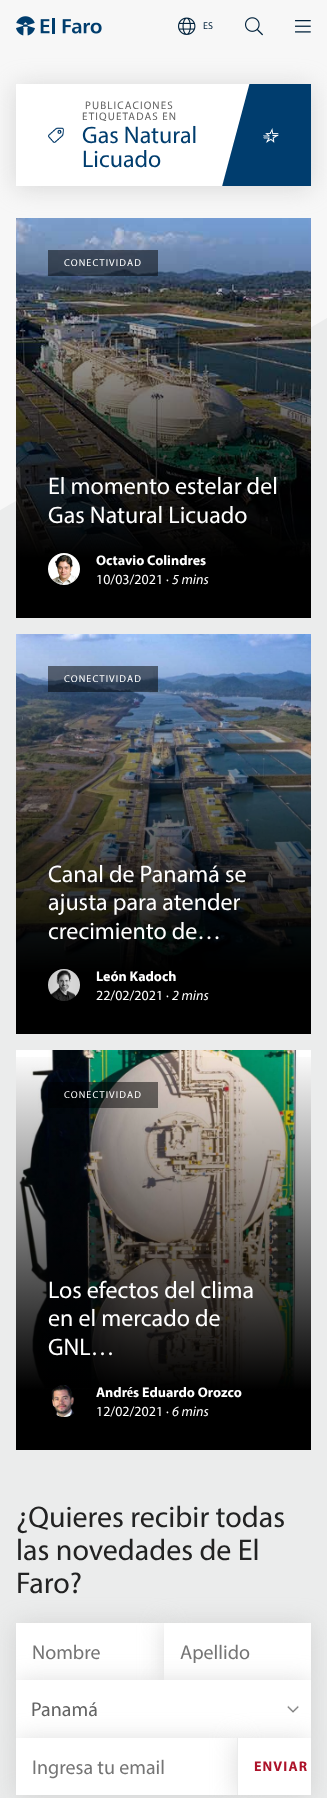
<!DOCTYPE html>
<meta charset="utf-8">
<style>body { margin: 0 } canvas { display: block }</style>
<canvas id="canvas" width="327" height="1798"></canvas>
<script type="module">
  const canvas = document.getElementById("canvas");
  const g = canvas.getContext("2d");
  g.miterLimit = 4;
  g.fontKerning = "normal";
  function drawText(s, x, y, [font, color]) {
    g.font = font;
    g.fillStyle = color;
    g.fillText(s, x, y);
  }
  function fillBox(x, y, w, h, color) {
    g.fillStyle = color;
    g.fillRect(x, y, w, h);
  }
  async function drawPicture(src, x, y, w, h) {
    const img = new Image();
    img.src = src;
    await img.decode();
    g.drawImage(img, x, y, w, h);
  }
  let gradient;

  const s1 = ["10px Myriad", "#00213B"];
  const s2 = ["11px Myriad", "#636363"];
  const s3 = ["24px Myriad", "#003D6E"];
  const s4 = ["10px Myriad", "#FFFFFF"];
  const s5 = ["24px Myriad", "#FFFFFF"];
  const s6 = ["bold 14px Myriad", "#FFFFFF"];
  const s7 = ["14px Myriad", "#FFFFFF"];
  const s8 = ["italic 14px Myriad", "#FFFFFF"];
  const s9 = ["30px Myriad", "#222222"];
  const s10 = ["20px Myriad", "#757575"];
  const s11 = ["20px Myriad", "#636363"];
  const s12 = ["bold 14px Myriad", "#AD132A"];

  fillBox(0, 0, 327, 1798, "#F7F7F7");
  g.fillStyle = "#EBECEC";
  g.beginPath();
  g.moveTo(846, 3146);
  g.lineTo(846, 1087);
  g.lineTo(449, 832);
  g.lineTo(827, 24);
  g.lineTo(-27, 526);
  g.lineTo(-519, 209);
  g.lineTo(-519, 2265);
  g.lineTo(-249, 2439);
  g.lineTo(216, 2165);
  g.lineTo(10, 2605);
  g.closePath();
  g.fill("evenodd");
  await drawPicture("pic1.png", 16, 16, 86, 20);
  await drawPicture("pic2.png", 178, 17, 18, 18);
  drawText("ES", 203, 29, s1);
  await drawPicture("pic3.png", 245, 17, 18, 19);
  await drawPicture("pic4.png", 295, 20, 16, 13);
  g.fillStyle = "rgba(184, 184, 184, 0.5)";
  g.filter = "blur(12.5px)";
  g.beginPath();
  g.rect(16, 86, 295, 102);
  g.fill();
  g.filter = "none";
  fillBox(16, 84, 234, 102, "#FFFFFF");
  await drawPicture("pic5.png", 48, 127, 16, 16);
  g.letterSpacing = "1.1px";
  drawText("PUBLICACIONES", 85, 109, s2);
  drawText("ETIQUETADAS EN", 82, 120, s2);
  g.letterSpacing = "0px";
  drawText("Gas Natural", 82, 143, s3);
  drawText("Licuado", 82, 167, s3);
  g.save();
  g.beginPath();
  g.rect(16, 84, 295, 102);
  g.clip();
  g.beginPath();
  g.moveTo(266, 22);
  g.lineTo(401, 58);
  g.lineTo(316, 376);
  g.lineTo(181, 340);
  g.closePath();
  g.fill();
  g.restore();
  await drawPicture("pic6.png", 263, 128, 16, 15);
  await drawPicture("pic7.png", 16, 218, 295, 400);
  fillBox(48, 250, 110, 26, "rgba(0, 0, 0, 0.5)");
  g.letterSpacing = "1.1px";
  drawText("CONECTIVIDAD", 64, 266, s4);
  g.letterSpacing = "0px";
  drawText("El momento estelar del", 48, 494, s5);
  drawText("Gas Natural Licuado", 48, 523, s5);
  await drawPicture("pic8.png", 48, 553, 32, 32);
  drawText("Octavio Colindres", 96, 565, s6);
  drawText("10/03/2021 ·", 96, 584, s7);
  drawText("5 mins", 172, 584, s8);
  await drawPicture("pic9.png", 16, 634, 295, 400);
  fillBox(48, 666, 110, 26, "rgba(0, 0, 0, 0.5)");
  g.letterSpacing = "1.1px";
  drawText("CONECTIVIDAD", 64, 682, s4);
  g.letterSpacing = "0px";
  drawText("Canal de Panamá se", 48, 882, s5);
  drawText("ajusta para atender", 48, 910, s5);
  drawText("crecimiento de…", 48, 939, s5);
  await drawPicture("pic10.png", 48, 969, 32, 32);
  drawText("León Kadoch", 96, 981, s6);
  drawText("22/02/2021 ·", 96, 1000, s7);
  drawText("2 mins", 172, 1000, s8);
  fillBox(16, 1050, 295, 338, "#FFFFFF");
  await drawPicture("pic11.png", 19, 1050, 280, 338);
  gradient = g.createLinearGradient(164, 1450, 164, 1050);
  gradient.addColorStop(0.15, "#000000");
  gradient.addColorStop(1, "rgba(0, 0, 0, 0)");
  g.fillStyle = gradient;
  g.fillRect(16, 1057, 295, 393);
  fillBox(48, 1082, 110, 26, "rgba(0, 0, 0, 0.5)");
  g.letterSpacing = "1.1px";
  drawText("CONECTIVIDAD", 64, 1098, s4);
  g.letterSpacing = "0px";
  drawText("Los efectos del clima", 48, 1298, s5);
  drawText("en el mercado de", 48, 1326, s5);
  drawText("GNL…", 48, 1355, s5);
  await drawPicture("pic12.png", 51, 1385, 24, 32);
  drawText("Andrés Eduardo Orozco", 96, 1397, s6);
  drawText("12/02/2021 ·", 96, 1416, s7);
  drawText("6 mins", 172, 1416, s8);
  drawText("¿Quieres recibir todas", 16, 1527, s9);
  drawText("las novedades de El", 16, 1560, s9);
  drawText("Faro?", 16, 1593, s9);
  g.fillStyle = "rgba(184, 184, 184, 0.5)";
  g.filter = "blur(12.5px)";
  g.beginPath();
  g.rect(16, 1625, 148, 57);
  g.fill();
  g.filter = "none";
  fillBox(16, 1623, 148, 57, "#FFFFFF");
  drawText("Nombre", 32, 1659, s10);
  g.fillStyle = "rgba(184, 184, 184, 0.5)";
  g.filter = "blur(12.5px)";
  g.beginPath();
  g.rect(164, 1625, 147, 57);
  g.fill();
  g.filter = "none";
  fillBox(164, 1623, 147, 57, "#FFFFFF");
  drawText("Apellido", 180, 1659, s10);
  g.fillStyle = "rgba(184, 184, 184, 0.5)";
  g.filter = "blur(12.5px)";
  g.beginPath();
  g.rect(16, 1682, 295, 58);
  g.fill();
  g.filter = "none";
  fillBox(16, 1680, 295, 58, "#FFFFFF");
  await drawPicture("pic13.png", 287, 1705, 12, 8);
  drawText("Panamá", 31, 1716, s11);
  g.fillStyle = "rgba(184, 184, 184, 0.5)";
  g.filter = "blur(12.5px)";
  g.beginPath();
  g.rect(16, 1740, 221, 57);
  g.fill();
  g.filter = "none";
  fillBox(16, 1738, 221, 57, "#FFFFFF");
  drawText("Ingresa tu email", 32, 1774, s10);
  g.fillStyle = "rgba(184, 184, 184, 0.5)";
  g.filter = "blur(12.5px)";
  g.beginPath();
  g.rect(237, 1740, 74, 57);
  g.fill();
  g.filter = "none";
  fillBox(238, 1738, 73, 57, "#FFFFFF");
  fillBox(237, 1738, 1, 57, "#EBECEC");
  g.letterSpacing = "1.1px";
  drawText("ENVIAR", 254, 1771, s12);
</script>
